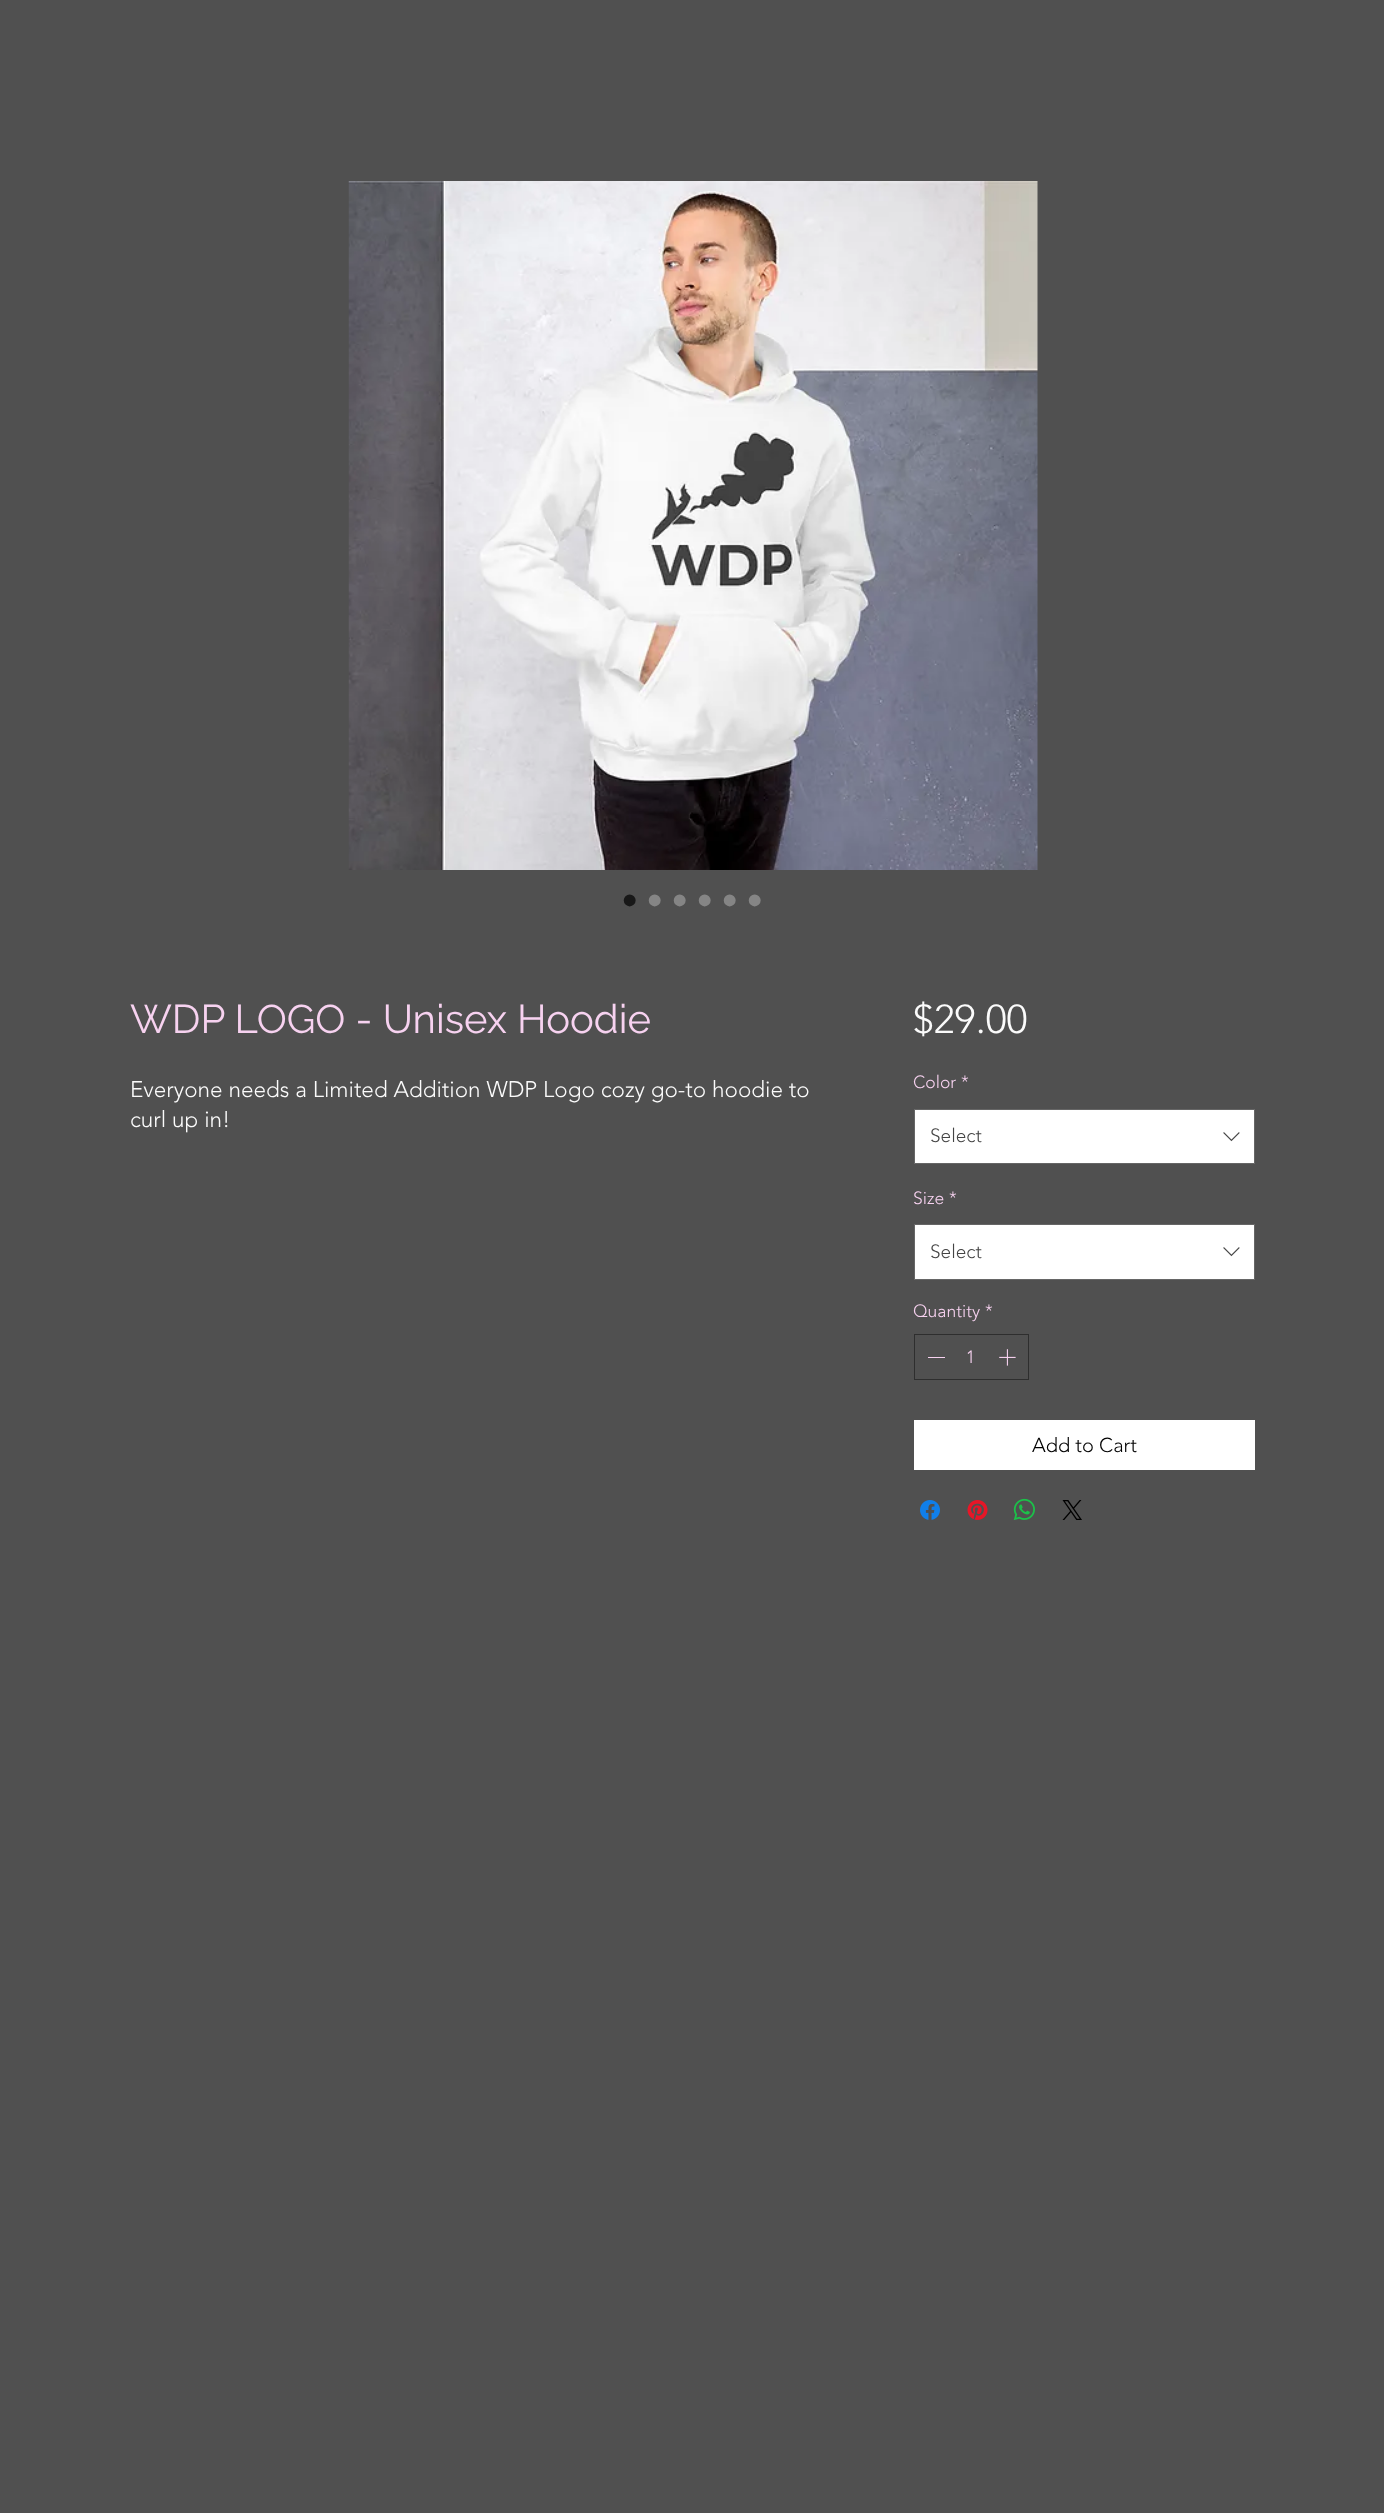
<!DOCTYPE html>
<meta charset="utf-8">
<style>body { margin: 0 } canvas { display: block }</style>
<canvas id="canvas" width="1384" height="2513"></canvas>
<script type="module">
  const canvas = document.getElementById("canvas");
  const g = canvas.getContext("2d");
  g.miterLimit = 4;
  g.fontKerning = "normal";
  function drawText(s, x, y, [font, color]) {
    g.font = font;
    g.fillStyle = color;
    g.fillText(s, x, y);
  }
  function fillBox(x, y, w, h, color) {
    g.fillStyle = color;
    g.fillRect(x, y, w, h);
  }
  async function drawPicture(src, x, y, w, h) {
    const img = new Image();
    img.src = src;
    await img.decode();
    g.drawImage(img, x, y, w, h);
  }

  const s1 = ["44px Liberation Sans", "#181818"];
  const s2 = ["44px Liberation Sans", "#858585"];
  const s3 = ["40px Raleway", "#F7D2F0"];
  const s4 = ["300 22.5px 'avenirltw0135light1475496'", "#FBFBFB"];
  const s5 = ["300 40px 'avenirltw0135light1475496'", "#FBFBFB"];
  const s6 = ["300 17.5px 'avenirltw0135light1475496'", "#F7D2F0"];
  const s7 = ["300 19px 'avenirltw0135light1475496'", "#444444"];
  const s8 = ["300 20px 'avenirltw0135light1475496'", "#000000"];

  fillBox(0, 0, 1384, 2513, "#505050");
  await drawPicture("pic1.png", 348, 181, 690, 689);
  drawText("•", 622, 915, s1);
  drawText("•", 647, 915, s2);
  drawText("•", 672, 915, s2);
  drawText("•", 697, 915, s2);
  drawText("•", 722, 915, s2);
  drawText("•", 747, 915, s2);
  drawText("WDP LOGO - Unisex Hoodie", 130, 1033, s3);
  drawText("Everyone needs a Limited Addition WDP Logo cozy go-to hoodie to", 130, 1097, s4);
  drawText("curl up in!", 130, 1127, s4);
  drawText("$29.00", 913, 1033, s5);
  drawText("Color", 913, 1088, s6);
  drawText("*", 961, 1088, s6);
  g.fillStyle = "#FFFFFF";
  g.beginPath();
  g.rect(914.5, 1109.5, 340, 54);
  g.fill();
  g.strokeStyle = "#666666";
  g.stroke();
  drawText("Select", 930, 1142, s7);
  await drawPicture("pic2.png", 1223, 1132, 17, 10);
  drawText("Size", 913, 1204, s6);
  drawText("*", 949, 1204, s6);
  g.fillStyle = "#FFFFFF";
  g.beginPath();
  g.rect(914.5, 1224.5, 340, 55);
  g.fill();
  g.stroke();
  drawText("Select", 930, 1258, s7);
  await drawPicture("pic2.png", 1223, 1247, 17, 10);
  drawText("Quantity", 913, 1317, s6);
  drawText("*", 985, 1317, s6);
  g.strokeStyle = "#2E2E2E";
  g.strokeRect(914.5, 1334.5, 114, 45);
  fillBox(928, 1357, 17, 1, "#F7D2F0");
  drawText("1", 966, 1363, s6);
  await drawPicture("pic3.png", 999, 1349, 17, 17);
  fillBox(914, 1420, 341, 50, "#FFFFFF");
  drawText("Add to Cart", 1032, 1452, s8);
  await drawPicture("pic4.png", 920, 1500, 20, 20);
  await drawPicture("pic5.png", 967, 1500, 21, 20);
  await drawPicture("pic6.png", 1013, 1498, 22, 22);
  await drawPicture("pic7.png", 1062, 1500, 20, 20);
</script>
